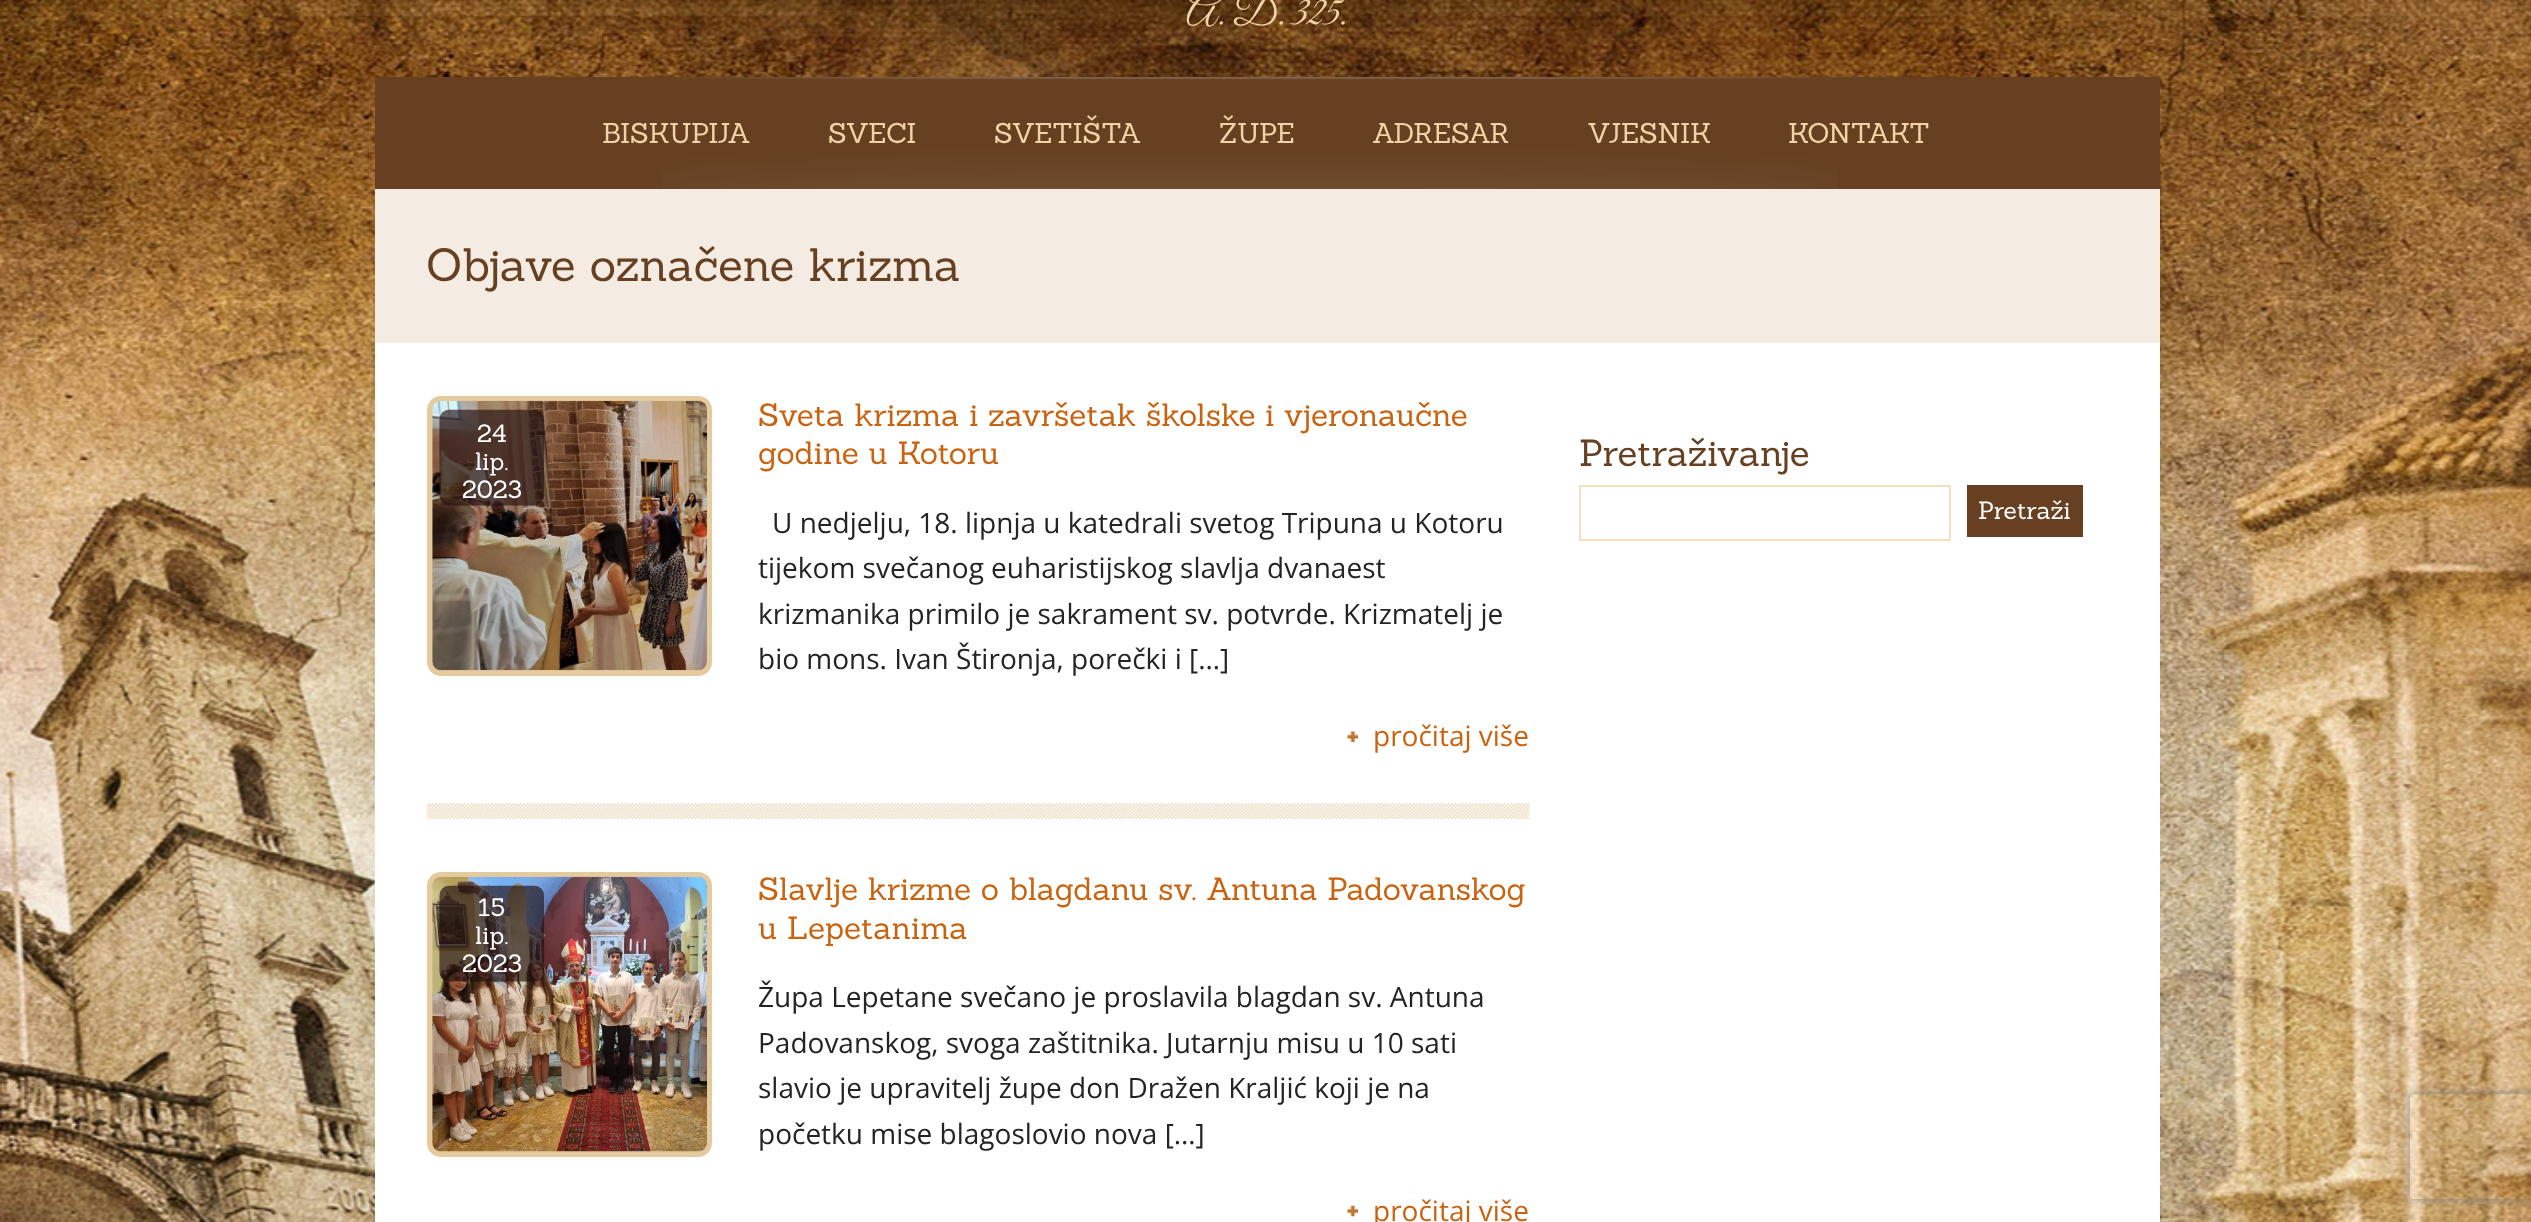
<!DOCTYPE html>
<meta charset="utf-8">
<style>body { margin: 0 } canvas { display: block }</style>
<canvas id="canvas" width="2531" height="1222"></canvas>
<script type="module">
  const canvas = document.getElementById("canvas");
  const g = canvas.getContext("2d");
  g.miterLimit = 4;
  g.fontKerning = "normal";
  function drawText(s, x, y, [font, color]) {
    g.font = font;
    g.fillStyle = color;
    g.fillText(s, x, y);
  }
  function fillBox(x, y, w, h, color) {
    g.fillStyle = color;
    g.fillRect(x, y, w, h);
  }
  function fillRounded(x, y, w, h, r, color) {
    g.fillStyle = color;
    g.beginPath();
    g.roundRect(x, y, w, h, r);
    g.fill();
  }
  async function drawPicture(src, x, y, w, h) {
    const img = new Image();
    img.src = src;
    await img.decode();
    g.drawImage(img, x, y, w, h);
  }

  const s1 = ["42px Great Vibes", "#F1D3A6"];
  const s2 = ["28px Sanchez", "#F1D3A6"];
  const s3 = ["45.5px Sanchez", "#664021"];
  const s4 = ["24.5px Sanchez", "#FFFFFF"];
  const s5 = ["31.5px Sanchez", "#C96310"];
  const s6 = ["28px Open Sans", "#242424"];
  const s7 = ["28px Open Sans", "#C96310"];
  const s8 = ["36.75px Sanchez", "#664021"];

  fillBox(0, 0, 2531, 1222, "#FFFFFF");
  await drawPicture("pic1.png", 0, 0, 2531, 1222);
  drawText("A. D. 325.", 1186, 24, s1);
  fillBox(375, 77, 1785, 112, "#664021");
  await drawPicture("pic2.png", 661, 77, 1177, 112);
  drawText("BISKUPIJA", 602, 143, s2);
  drawText("SVECI", 828, 143, s2);
  drawText("SVETIŠTA", 994, 143, s2);
  drawText("ŽUPE", 1219, 143, s2);
  drawText("ADRESAR", 1372, 143, s2);
  drawText("VJESNIK", 1587, 143, s2);
  drawText("KONTAKT", 1788, 143, s2);
  fillBox(375, 343, 1785, 879, "#FFFFFF");
  fillBox(375, 189, 1785, 154, "#F4ECE3");
  drawText("Objave označene krizma", 426, 281, s3);
  await drawPicture("pic3.png", 427, 803, 1103, 16);
  fillRounded(427, 396, 285, 280, 14, "#E5CA9E");
  await drawPicture("pic4.png", 432, 400, 275, 271);
  await drawPicture("pic5.png", 439, 409, 106, 97);
  drawText("24", 477, 442, s4);
  drawText("lip.", 475, 470, s4);
  drawText("2023", 462, 498, s4);
  drawText("Sveta krizma i završetak školske i vjeronaučne", 758, 426, s5);
  drawText("godine u Kotoru", 758, 464, s5);
  drawText("U nedjelju, 18. lipnja u katedrali svetog Tripuna u Kotoru", 772, 533, s6);
  drawText("tijekom svečanog euharistijskog slavlja dvanaest", 758, 578, s6);
  drawText("krizmanika primilo je sakrament sv. potvrde. Krizmatelj je", 758, 624, s6);
  drawText("bio mons. Ivan Štironja, porečki i […]", 758, 669, s6);
  await drawPicture("pic6.png", 1347, 731, 11, 11);
  drawText("pročitaj više", 1373, 746, s7);
  fillRounded(427, 872, 285, 285, 14, "#E5CA9E");
  await drawPicture("pic7.png", 432, 876, 275, 276);
  await drawPicture("pic8.png", 439, 885, 106, 97);
  drawText("15", 478, 916, s4);
  drawText("lip.", 475, 944, s4);
  drawText("2023", 462, 972, s4);
  drawText("Slavlje krizme o blagdanu sv. Antuna Padovanskog", 758, 900, s5);
  drawText("u Lepetanima", 758, 939, s5);
  drawText("Župa Lepetane svečano je proslavila blagdan sv. Antuna", 758, 1007, s6);
  drawText("Padovanskog, svoga zaštitnika. Jutarnju misu u 10 sati", 758, 1053, s6);
  drawText("slavio je upravitelj župe don Dražen Kraljić koji je na", 758, 1098, s6);
  drawText("početku mise blagoslovio nova […]", 758, 1144, s6);
  await drawPicture("pic9.png", 1347, 1205, 11, 12);
  drawText("pročitaj više", 1373, 1221, s7);
  drawText("Pretraživanje", 1579, 466, s8);
  g.strokeStyle = "#F6E0BB";
  g.lineWidth = 2;
  g.strokeRect(1580, 486, 370, 54);
  fillBox(1967, 485, 116, 52, "#664021");
  drawText("Pretraži", 1978, 519, s4);
  g.save();
  g.beginPath();
  g.moveTo(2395, 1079);
  g.lineTo(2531, 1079);
  g.lineTo(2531, 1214);
  g.lineTo(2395, 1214);
  g.closePath();
  g.moveTo(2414, 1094);
  g.lineTo(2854, 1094);
  g.bezierCurveTo(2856, 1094, 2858, 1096, 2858, 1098);
  g.lineTo(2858, 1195);
  g.bezierCurveTo(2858, 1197, 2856, 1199, 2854, 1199);
  g.lineTo(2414, 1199);
  g.bezierCurveTo(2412, 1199, 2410, 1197, 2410, 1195);
  g.lineTo(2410, 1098);
  g.bezierCurveTo(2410, 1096, 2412, 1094, 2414, 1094);
  g.closePath();
  g.clip("evenodd");
  g.fillStyle = "#808080";
  g.filter = "blur(4.5px)";
  g.beginPath();
  g.roundRect(2410, 1094, 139, 105, 4);
  g.fill();
  g.filter = "none";
  g.restore();
</script>
